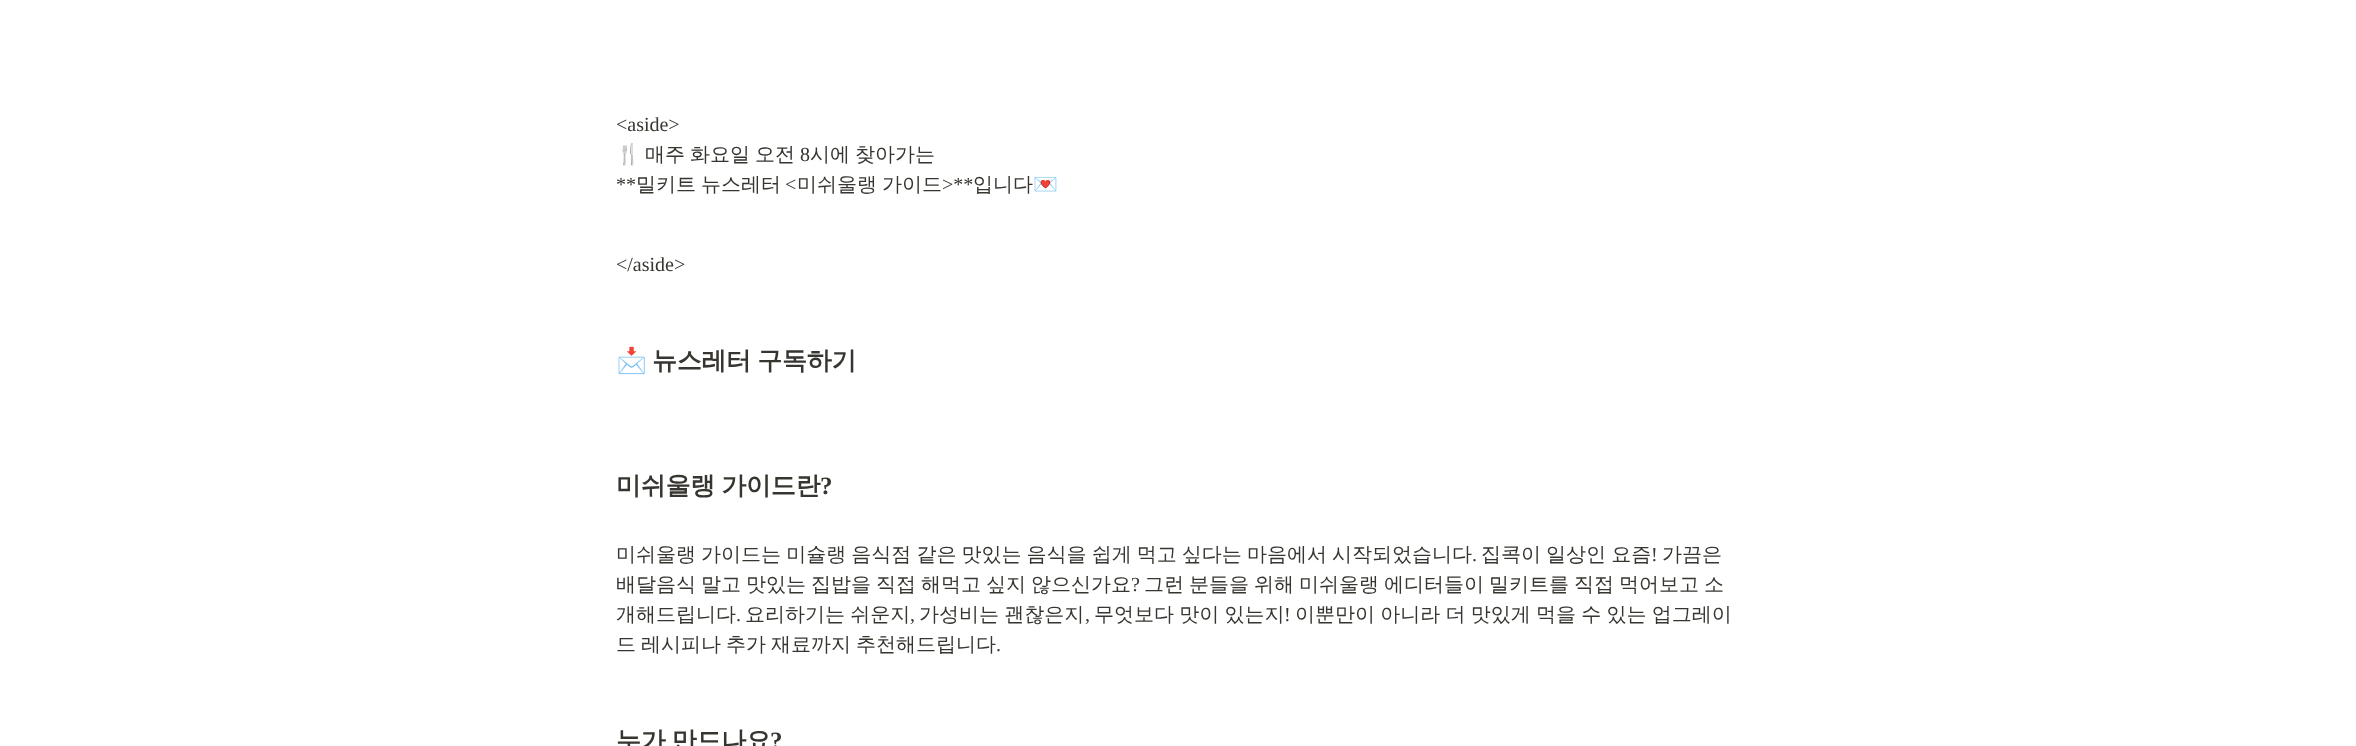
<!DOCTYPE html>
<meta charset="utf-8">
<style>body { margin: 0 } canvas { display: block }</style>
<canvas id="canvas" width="2356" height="746"></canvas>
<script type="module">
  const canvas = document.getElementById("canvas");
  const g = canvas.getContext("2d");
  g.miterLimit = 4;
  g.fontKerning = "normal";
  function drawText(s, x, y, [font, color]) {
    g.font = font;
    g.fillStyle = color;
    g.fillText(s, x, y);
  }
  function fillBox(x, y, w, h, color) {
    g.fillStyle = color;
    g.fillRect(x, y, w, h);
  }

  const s1 = ["20px Liberation Serif", "#37352F"];
  const s2 = ["20px Noto Color Emoji", "#37352F"];
  const s3 = ["500 20px WenQuanYi Zen Hei", "#37352F"];
  const s4 = ["bold 25px Noto Color Emoji", "#37352F"];
  const s5 = ["bold 25px WenQuanYi Zen Hei", "#37352F"];
  const s6 = ["bold 25px Liberation Serif", "#37352F"];

  fillBox(0, 0, 2356, 746, "#FFFFFF");
  drawText("<aside>", 616, 131, s1);
  drawText("🍴", 616, 161, s2);
  g.wordSpacing = "-1px";
  drawText("매주 화요일 오전", 645, 161, s3);
  g.wordSpacing = "0px";
  drawText("8", 800, 161, s1);
  g.wordSpacing = "-1px";
  drawText("시에 찾아가는", 810, 161, s3);
  g.wordSpacing = "0px";
  drawText("**", 616, 191, s1);
  g.wordSpacing = "-1px";
  drawText("밀키트 뉴스레터", 636, 191, s3);
  g.wordSpacing = "0px";
  drawText("<", 785, 191, s1);
  g.wordSpacing = "-1px";
  drawText("미쉬울랭 가이드", 797, 191, s3);
  g.wordSpacing = "0px";
  drawText(">**", 942, 191, s1);
  drawText("입니다", 973, 191, s3);
  drawText("💌", 1033, 191, s2);
  drawText("<\/aside>", 616, 271, s1);
  g.letterSpacing = "-0.25px";
  drawText("📩", 616, 369, s4);
  g.wordSpacing = "-1px";
  drawText("뉴스레터 구독하기", 652, 369, s5);
  drawText("미쉬울랭 가이드란", 616, 494, s5);
  g.wordSpacing = "0px";
  drawText("?", 820, 494, s6);
  g.letterSpacing = "0px";
  g.wordSpacing = "-0.9px";
  drawText("미쉬울랭 가이드는 미슐랭 음식점 같은 맛있는 음식을 쉽게 먹고 싶다는 마음에서 시작되었습니다", 616, 561, s3);
  g.wordSpacing = "0px";
  drawText(".", 1472, 561, s1);
  g.wordSpacing = "-0.9px";
  drawText("집콕이 일상인 요즘", 1481, 561, s3);
  g.wordSpacing = "0px";
  drawText("!", 1651, 561, s1);
  drawText("가끔은", 1662, 561, s3);
  g.wordSpacing = "-1px";
  drawText("배달음식 말고 맛있는 집밥을 직접 해먹고 싶지 않으신가요", 616, 591, s3);
  g.wordSpacing = "0px";
  drawText("?", 1131, 591, s1);
  g.wordSpacing = "-1px";
  drawText("그런 분들을 위해 미쉬울랭 에디터들이 밀키트를 직접 먹어보고 소", 1144, 591, s3);
  g.wordSpacing = "0px";
  drawText("개해드립니다", 616, 621, s3);
  drawText(".", 736, 621, s1);
  g.wordSpacing = "-0.75px";
  drawText("요리하기는 쉬운지", 745, 621, s3);
  g.wordSpacing = "0px";
  drawText(",", 910, 621, s1);
  g.wordSpacing = "-0.75px";
  drawText("가성비는 괜찮은지", 919, 621, s3);
  g.wordSpacing = "0px";
  drawText(",", 1085, 621, s1);
  g.wordSpacing = "-0.75px";
  drawText("무엇보다 맛이 있는지", 1094, 621, s3);
  g.wordSpacing = "0px";
  drawText("!", 1284, 621, s1);
  g.wordSpacing = "-0.75px";
  drawText("이뿐만이 아니라 더 맛있게 먹을 수 있는 업그레이", 1295, 621, s3);
  g.wordSpacing = "-1px";
  drawText("드 레시피나 추가 재료까지 추천해드립니다", 616, 651, s3);
  g.wordSpacing = "0px";
  drawText(".", 996, 651, s1);
  g.letterSpacing = "-0.25px";
  g.wordSpacing = "-1px";
  drawText("누가 만드나요", 616, 749, s5);
  g.wordSpacing = "0px";
  drawText("?", 770, 749, s6);
</script>
